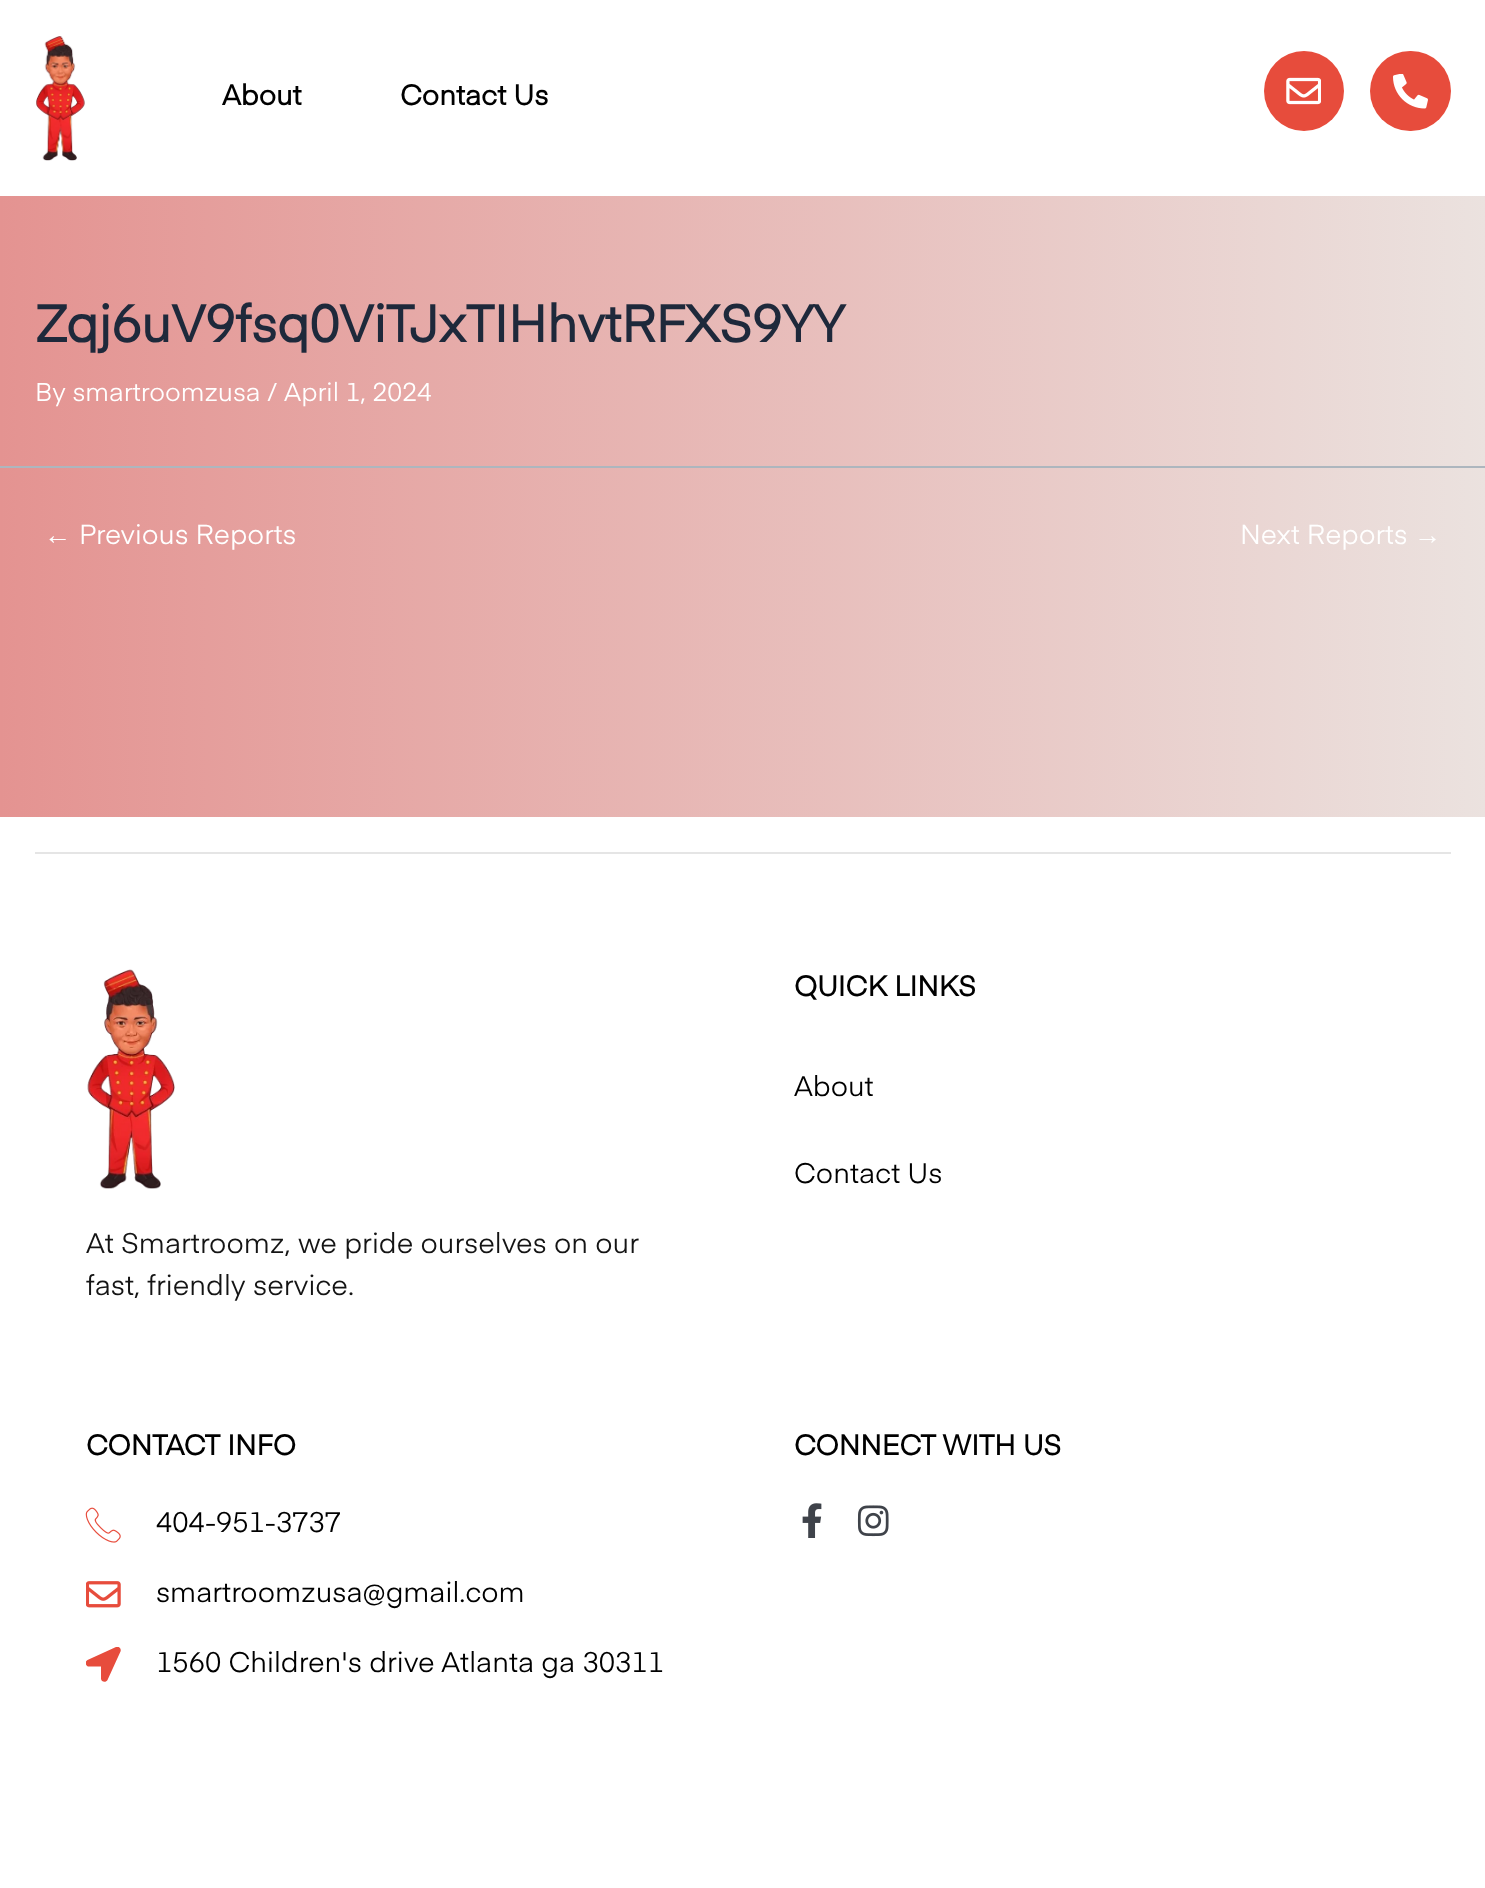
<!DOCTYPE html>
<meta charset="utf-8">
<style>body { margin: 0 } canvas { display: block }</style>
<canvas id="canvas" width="1485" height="1888"></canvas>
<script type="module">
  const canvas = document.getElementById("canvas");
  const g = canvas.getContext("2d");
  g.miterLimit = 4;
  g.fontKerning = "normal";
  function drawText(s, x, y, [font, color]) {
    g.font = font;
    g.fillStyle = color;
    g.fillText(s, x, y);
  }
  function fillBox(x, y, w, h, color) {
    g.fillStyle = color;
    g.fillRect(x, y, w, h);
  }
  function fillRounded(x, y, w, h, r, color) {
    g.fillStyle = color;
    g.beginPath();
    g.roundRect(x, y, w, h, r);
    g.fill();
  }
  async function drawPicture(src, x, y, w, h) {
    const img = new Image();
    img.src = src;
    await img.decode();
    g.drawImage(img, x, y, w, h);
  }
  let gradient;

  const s1 = ["bold 28px 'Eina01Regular'", "#000000"];
  const s2 = ["bold 51.1px 'Eina01Regular'", "#1E293B"];
  const s3 = ["25.5px 'Eina01Regular'", "#FFFFFF"];
  const s4 = ["27.25px Liberation Sans", "#FFFFFF"];
  const s5 = ["27.25px 'Eina01Regular'", "#FFFFFF"];
  const s6 = ["28px 'Eina01Regular'", "#000000"];
  const s7 = ["28px 'Eina01Regular'", "#141414"];

  fillBox(0, 0, 1485, 1888, "#FFFFFF");
  gradient = g.createLinearGradient(0, 944, 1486, 944);
  gradient.addColorStop(0, "#E49391");
  gradient.addColorStop(1, "#EBE2DF");
  g.fillStyle = gradient;
  g.fillRect(0, 196, 1485, 621);
  await drawPicture("pic1.png", 36, 36, 49, 125);
  drawText("About", 222, 105, s1);
  drawText("Contact Us", 400, 105, s1);
  g.fillStyle = "#E74C3C";
  g.beginPath();
  g.arc(1304, 91, 40, 0, Math.PI * 2);
  g.fill();
  await drawPicture("pic2.png", 1286, 77, 35, 28);
  fillRounded(1370, 51, 81, 80, 40, "#E74C3C");
  await drawPicture("pic3.png", 1393, 74, 35, 35);
  drawText("Zqj6uV9fsq0ViTJxTIHhvtRFXS9YY", 35, 342, s2);
  drawText("By smartroomzusa /", 35, 401, s3);
  drawText("April 1, 2024", 284, 401, s3);
  fillBox(0, 466, 1485, 2, "#ADB6BE");
  drawText("←", 44, 544, s4);
  drawText("Previous Reports", 79, 544, s5);
  drawText("Next Reports", 1240, 544, s5);
  drawText("→", 1414, 544, s4);
  fillBox(35, 852, 1416, 2, "#E5E5E5");
  drawText("QUICK LINKS", 794, 996, s1);
  drawText("About", 794, 1096, s6);
  drawText("Contact Us", 794, 1183, s6);
  await drawPicture("pic4.png", 87, 969, 88, 220);
  drawText("At Smartroomz, we pride ourselves on our", 86, 1253, s7);
  drawText("fast, friendly service.", 86, 1295, s7);
  drawText("CONTACT INFO", 86, 1455, s1);
  await drawPicture("pic5.png", 85, 1507, 36, 36);
  drawText("404-951-3737", 156, 1532, s6);
  await drawPicture("pic6.png", 86, 1581, 35, 27);
  drawText("smartroomzusa@gmail.com", 156, 1602, s6);
  g.save();
  g.beginPath();
  g.rect(86, 1647, 35, 35);
  g.clip();
  g.fillStyle = "#E74C3C";
  g.beginPath();
  g.moveTo(116, 1647);
  g.lineTo(87.5, 1660);
  g.bezierCurveTo(84.5, 1661.5, 85.5, 1666.5, 89, 1666.5);
  g.lineTo(101, 1666.5);
  g.lineTo(101, 1678.5);
  g.bezierCurveTo(101, 1682, 106, 1683, 107.5, 1680);
  g.lineTo(120.5, 1651.5);
  g.bezierCurveTo(121.5, 1648.5, 119, 1646, 116, 1647);
  g.closePath();
  g.fill();
  g.restore();
  drawText("1560 Children's drive Atlanta ga 30311", 156, 1672, s6);
  drawText("CONNECT WITH US", 794, 1455, s1);
  await drawPicture("pic7.png", 802, 1503, 20, 35);
  await drawPicture("pic8.png", 857, 1505, 32, 32);
</script>
